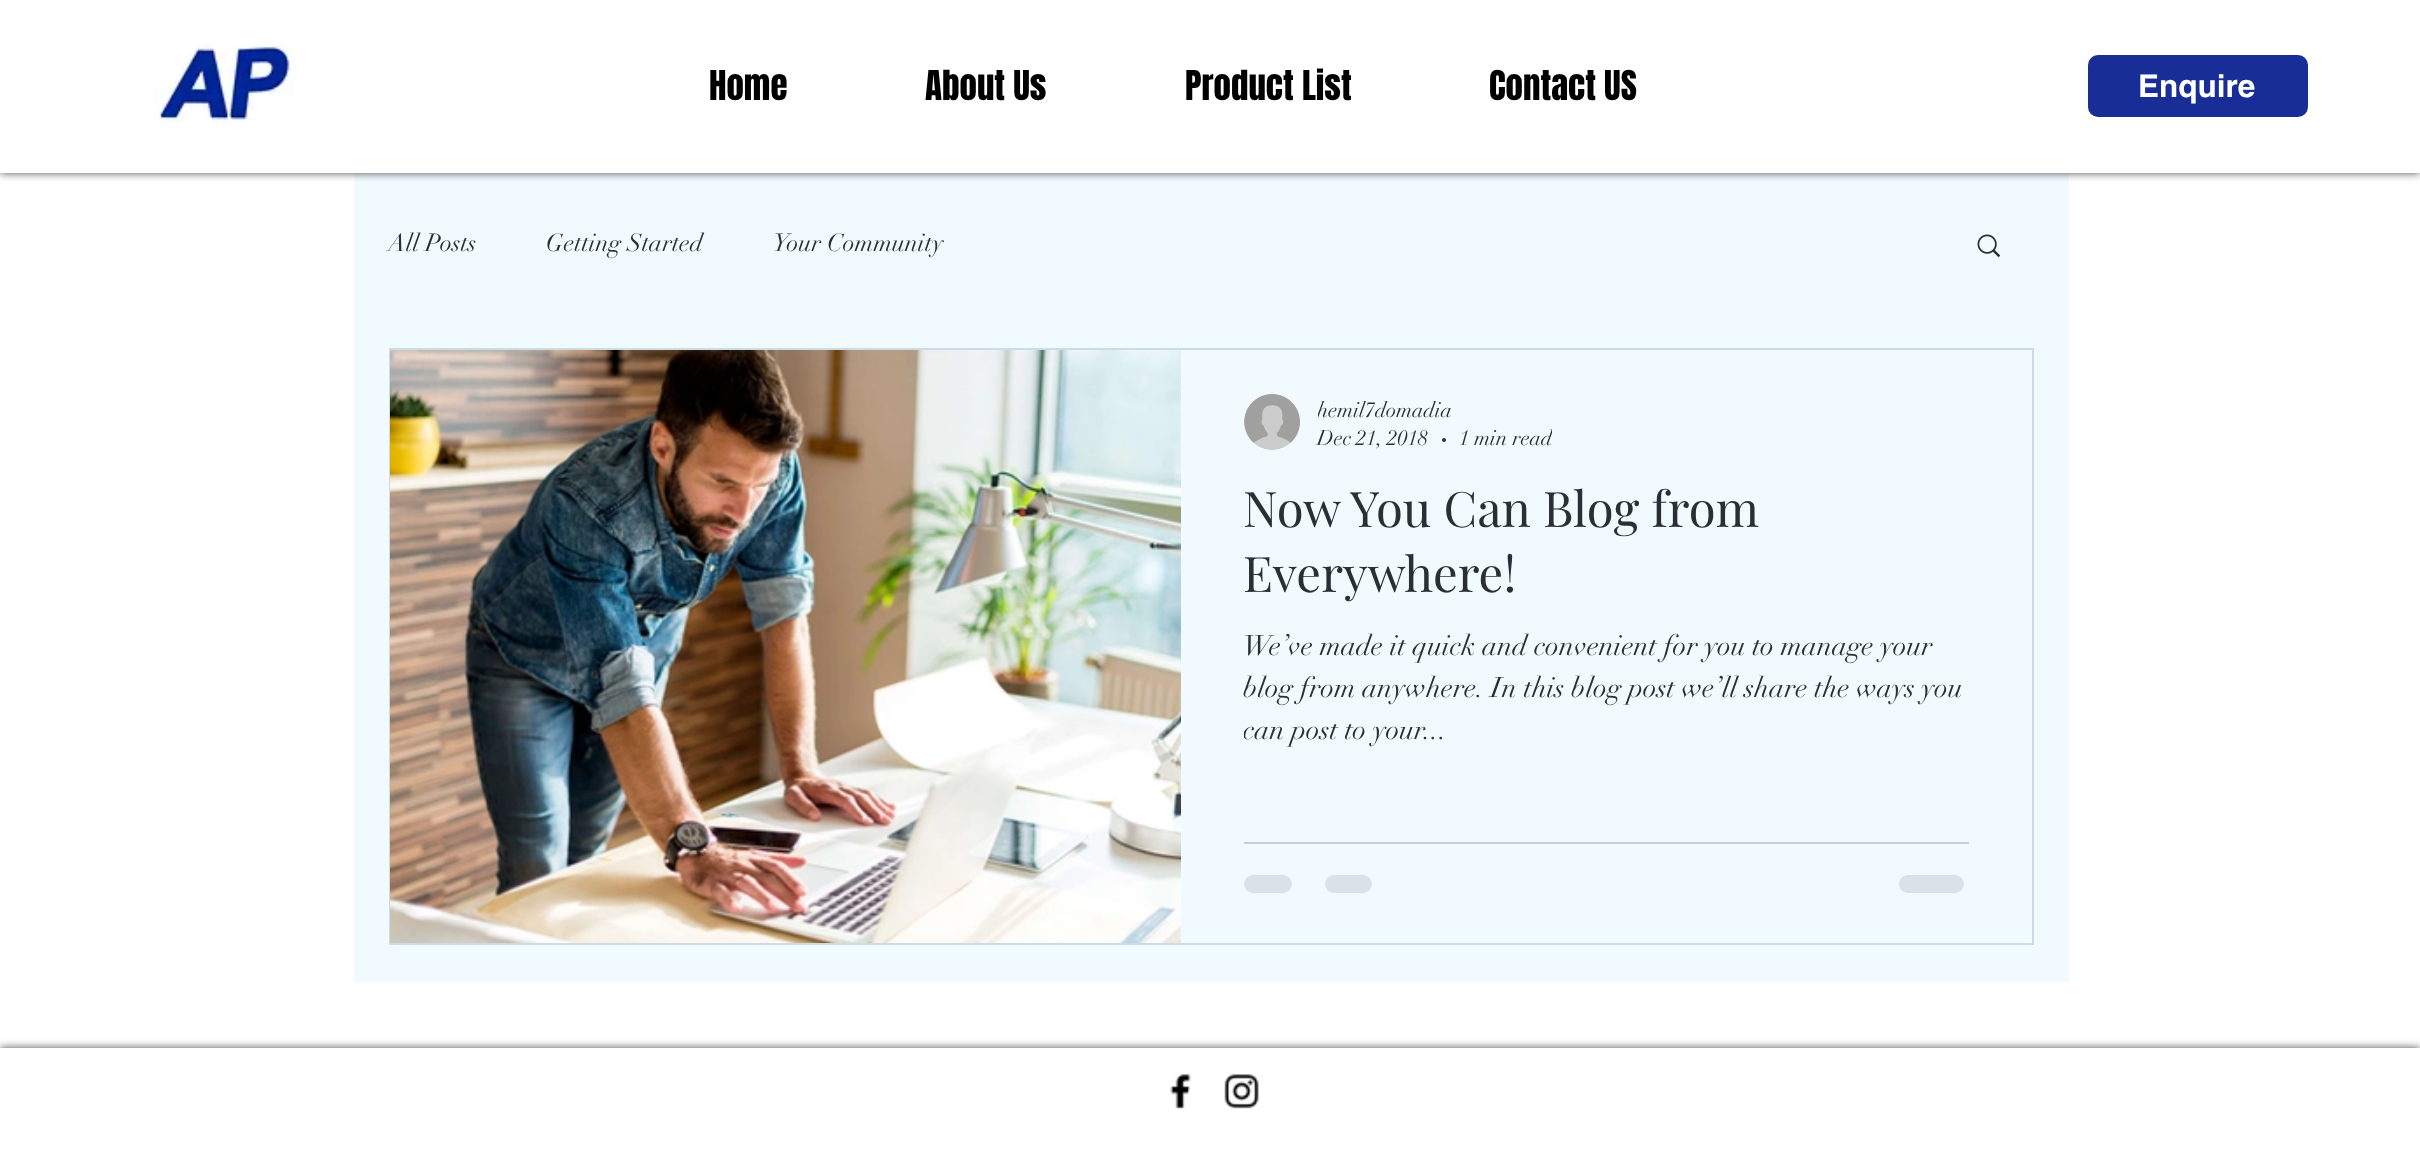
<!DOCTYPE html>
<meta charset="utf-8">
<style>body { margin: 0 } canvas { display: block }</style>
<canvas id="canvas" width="2420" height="1156"></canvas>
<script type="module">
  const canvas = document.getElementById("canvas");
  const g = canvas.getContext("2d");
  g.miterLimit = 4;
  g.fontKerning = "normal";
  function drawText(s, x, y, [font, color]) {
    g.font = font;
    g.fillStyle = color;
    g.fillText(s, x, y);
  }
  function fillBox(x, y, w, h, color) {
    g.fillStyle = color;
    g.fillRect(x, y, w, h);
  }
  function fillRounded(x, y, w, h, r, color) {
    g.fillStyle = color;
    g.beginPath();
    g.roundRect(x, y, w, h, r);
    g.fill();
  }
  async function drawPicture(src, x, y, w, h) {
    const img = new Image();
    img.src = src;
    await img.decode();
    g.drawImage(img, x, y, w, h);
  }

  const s1 = ["35px Anton", "#000000"];
  const s2 = ["bold 31.5px helvetica", "#FFFFFF"];
  const s3 = ["24.5px didot", "#292F33"];
  const s4 = ["21px didot", "#292F33"];
  const s5 = ["49px Playfair Display", "#292F33"];
  const s6 = ["28px didot", "#292F33"];

  fillBox(0, 0, 2420, 1156, "#FFFFFF");
  fillBox(354, 173, 1715, 809, "#F0FAFF");
  g.save();
  g.beginPath();
  g.rect(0, 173, 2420, 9);
  g.clip();
  g.fillStyle = "rgba(0, 0, 0, 0.7)";
  g.filter = "blur(4.5px)";
  g.beginPath();
  g.rect(0, 0, 2420, 173);
  g.fill();
  g.filter = "none";
  g.restore();
  await drawPicture("pic1.png", 154, 42, 141, 82);
  drawText("Home", 709, 100, s1);
  drawText("About Us", 925, 100, s1);
  drawText("Product List", 1185, 100, s1);
  drawText("Contact US", 1489, 100, s1);
  g.fillStyle = "#182D96";
  g.beginPath();
  g.roundRect(2086, 53, 224, 66, 12);
  g.fill();
  g.strokeStyle = "#FFFFFF";
  g.lineWidth = 4;
  g.stroke();
  drawText("Enquire", 2138, 97, s2);
  drawText("All Posts", 388, 251, s3);
  drawText("Getting Started", 546, 251, s3);
  drawText("Your Community", 773, 251, s3);
  await drawPicture("pic2.png", 1977, 234, 24, 24);
  g.strokeStyle = "#CADDE6";
  g.lineWidth = 2;
  g.strokeRect(390, 349, 1643, 595);
  await drawPicture("pic3.png", 390, 350, 791, 593);
  await drawPicture("pic4.png", 1244, 394, 56, 56);
  g.save();
  g.beginPath();
  g.rect(1318, 397, 135, 25);
  g.clip();
  drawText("hemil7domadia", 1317, 417, s4);
  g.restore();
  drawText("Dec 21, 2018", 1317, 445, s4);
  g.beginPath();
  g.arc(1444, 440, 2, 0, Math.PI * 2);
  g.fill();
  g.save();
  g.beginPath();
  g.rect(1460, 427, 92, 25);
  g.clip();
  drawText("1 min read", 1459, 445, s4);
  g.restore();
  drawText("Now You Can Blog from", 1243, 527, s5);
  drawText("Everywhere!", 1243, 592, s5);
  drawText("We’ve made it quick and convenient for you to manage your", 1243, 655, s6);
  drawText("blog from anywhere. In this blog post we’ll share the ways you", 1243, 697, s6);
  g.save();
  g.beginPath();
  g.rect(1244, 625, 725, 196);
  g.clip();
  drawText("can post to your...", 1243, 739, s6);
  g.restore();
  fillBox(1244, 842, 725, 2, "#C8D1D6");
  fillRounded(1244, 875, 48, 18, 9, "#D8E2E7");
  fillRounded(1325, 875, 47, 18, 9, "#D8E2E7");
  fillRounded(1899, 875, 65, 18, 9, "#D8E2E7");
  g.save();
  g.beginPath();
  g.moveTo(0, 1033);
  g.lineTo(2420, 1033);
  g.lineTo(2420, 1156);
  g.lineTo(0, 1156);
  g.closePath();
  g.moveTo(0, 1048);
  g.lineTo(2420, 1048);
  g.lineTo(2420, 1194);
  g.lineTo(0, 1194);
  g.closePath();
  g.clip("evenodd");
  g.fillStyle = "rgba(0, 0, 0, 0.7)";
  g.filter = "blur(4.5px)";
  g.beginPath();
  g.rect(0, 1048, 2420, 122);
  g.fill();
  g.filter = "none";
  g.restore();
  fillBox(0, 1048, 2420, 1, "rgba(255, 255, 255, 0.6)");
  await drawPicture("pic5.png", 1170, 1074, 21, 35);
  await drawPicture("pic6.png", 1224, 1074, 35, 35);
</script>
